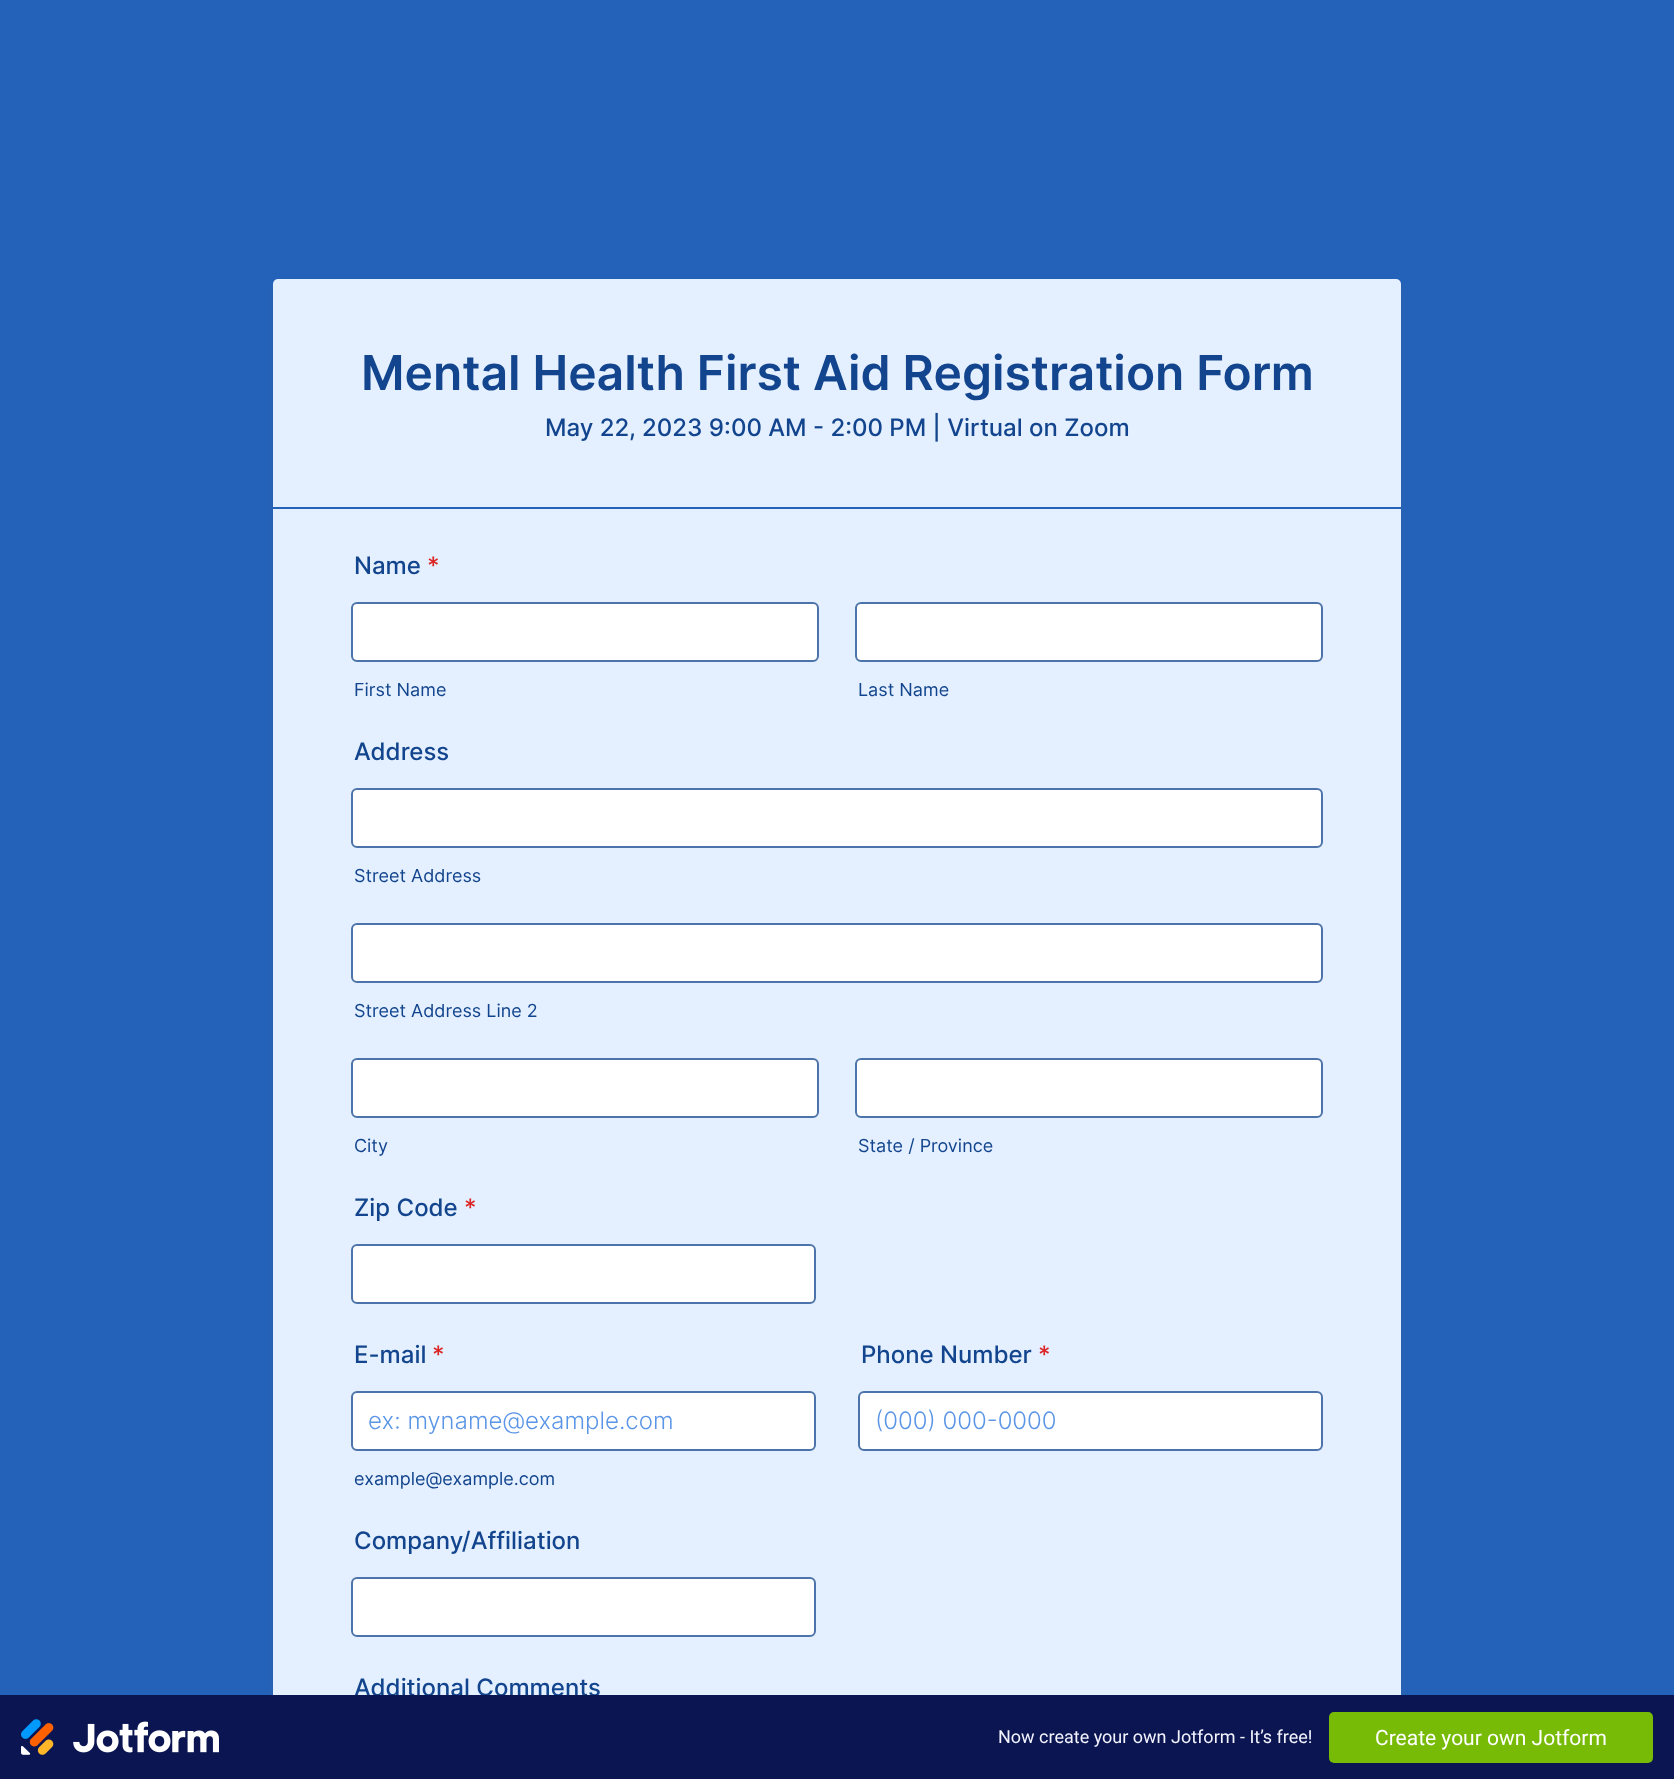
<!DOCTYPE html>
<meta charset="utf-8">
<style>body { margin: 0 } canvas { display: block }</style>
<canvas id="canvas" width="1674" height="1779"></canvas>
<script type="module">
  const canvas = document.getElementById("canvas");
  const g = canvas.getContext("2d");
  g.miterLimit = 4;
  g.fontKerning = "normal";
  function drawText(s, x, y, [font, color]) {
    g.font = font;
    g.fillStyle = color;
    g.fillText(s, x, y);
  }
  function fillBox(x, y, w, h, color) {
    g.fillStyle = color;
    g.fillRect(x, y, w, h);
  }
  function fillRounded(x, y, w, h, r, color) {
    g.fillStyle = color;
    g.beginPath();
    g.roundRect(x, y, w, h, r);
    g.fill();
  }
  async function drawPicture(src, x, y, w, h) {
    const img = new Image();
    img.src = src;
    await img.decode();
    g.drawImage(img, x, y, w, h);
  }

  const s1 = ["600 48px Inter", "#12458D"];
  const s2 = ["500 24px Inter", "#12458D"];
  const s3 = ["500 24px Inter", "#DC2626"];
  const s4 = ["18px Inter", "#12458D"];
  const s5 = ["300 24px Inter", "#5B95E6"];
  const s6 = ["18px Roboto", "#F3F3FE"];
  const s7 = ["21px Roboto", "#FFFFFF"];

  fillBox(0, 0, 1674, 1779, "#2462B9");
  g.fillStyle = "rgba(87, 100, 126, 0.21)";
  g.filter = "blur(3px)";
  g.beginPath();
  g.roundRect(273, 285, 1128, 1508, 5);
  g.fill();
  g.filter = "none";
  fillRounded(273, 279, 1128, 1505, 5, "#E4EFFF");
  fillBox(273, 507, 1128, 2, "#2462B9");
  drawText("Mental Health First Aid Registration Form", 361, 390, s1);
  drawText("May 22, 2023 9:00 AM - 2:00 PM | Virtual on Zoom", 545, 436, s2);
  drawText("Name", 354, 574, s2);
  drawText("*", 427, 574, s3);
  fillRounded(351, 602, 468, 60, 6, "#FFFFFF");
  g.beginPath();
  g.roundRect(352, 603, 466, 58, 5);
  g.strokeStyle = "rgba(18, 69, 141, 0.75)";
  g.lineWidth = 2;
  g.stroke();
  drawText("First Name", 354, 696, s4);
  fillRounded(855, 602, 468, 60, 6, "#FFFFFF");
  g.beginPath();
  g.roundRect(856, 603, 466, 58, 5);
  g.stroke();
  drawText("Last Name", 858, 696, s4);
  drawText("Address", 354, 760, s2);
  fillRounded(351, 788, 972, 60, 6, "#FFFFFF");
  g.beginPath();
  g.roundRect(352, 789, 970, 58, 5);
  g.stroke();
  drawText("Street Address", 354, 882, s4);
  fillRounded(351, 923, 972, 60, 6, "#FFFFFF");
  g.beginPath();
  g.roundRect(352, 924, 970, 58, 5);
  g.stroke();
  drawText("Street Address Line 2", 354, 1017, s4);
  fillRounded(351, 1058, 468, 60, 6, "#FFFFFF");
  g.beginPath();
  g.roundRect(352, 1059, 466, 58, 5);
  g.stroke();
  drawText("City", 354, 1152, s4);
  fillRounded(855, 1058, 468, 60, 6, "#FFFFFF");
  g.beginPath();
  g.roundRect(856, 1059, 466, 58, 5);
  g.stroke();
  drawText("State / Province", 858, 1152, s4);
  drawText("Zip Code", 354, 1216, s2);
  drawText("*", 464, 1216, s3);
  fillRounded(351, 1244, 465, 60, 6, "#FFFFFF");
  g.beginPath();
  g.roundRect(352, 1245, 463, 58, 5);
  g.stroke();
  drawText("E-mail", 354, 1363, s2);
  drawText("*", 432, 1363, s3);
  fillRounded(351, 1391, 465, 60, 6, "#FFFFFF");
  g.beginPath();
  g.roundRect(352, 1392, 463, 58, 5);
  g.stroke();
  drawText("ex: myname@example.com", 368, 1429, s5);
  drawText("example@example.com", 354, 1485, s4);
  drawText("Phone Number", 861, 1363, s2);
  drawText("*", 1038, 1363, s3);
  fillRounded(858, 1391, 465, 60, 6, "#FFFFFF");
  g.beginPath();
  g.roundRect(859, 1392, 463, 58, 5);
  g.stroke();
  drawText("(000) 000-0000", 875, 1429, s5);
  drawText("Company/Affiliation", 354, 1549, s2);
  fillRounded(351, 1577, 465, 60, 6, "#FFFFFF");
  g.beginPath();
  g.roundRect(352, 1578, 463, 58, 5);
  g.stroke();
  drawText("Additional Comments", 354, 1696, s2);
  fillBox(0, 1695, 1674, 84, "#0A1551");
  await drawPicture("pic1.png", 21, 1719, 198, 36);
  drawText("Now create your own Jotform - It’s free!", 998, 1743, s6);
  fillRounded(1329, 1712, 324, 51, 5, "#78BB07");
  drawText("Create your own Jotform", 1375, 1745, s7);
</script>
